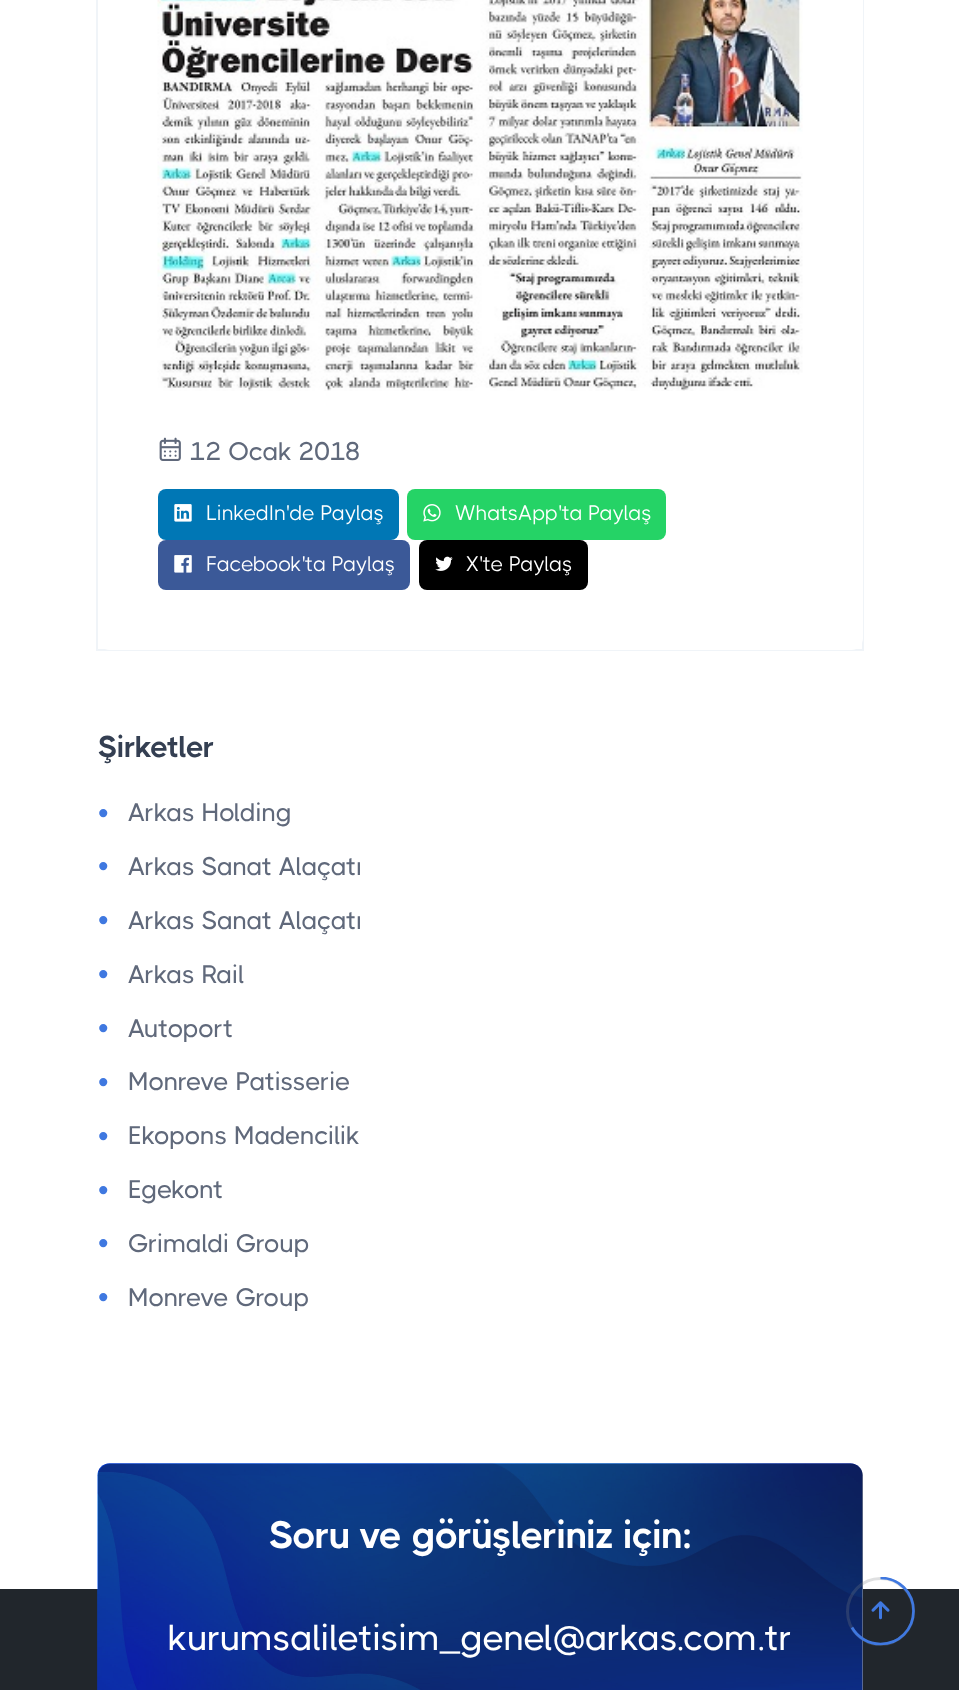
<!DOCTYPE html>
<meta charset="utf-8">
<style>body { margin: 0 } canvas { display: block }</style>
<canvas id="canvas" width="959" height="1690"></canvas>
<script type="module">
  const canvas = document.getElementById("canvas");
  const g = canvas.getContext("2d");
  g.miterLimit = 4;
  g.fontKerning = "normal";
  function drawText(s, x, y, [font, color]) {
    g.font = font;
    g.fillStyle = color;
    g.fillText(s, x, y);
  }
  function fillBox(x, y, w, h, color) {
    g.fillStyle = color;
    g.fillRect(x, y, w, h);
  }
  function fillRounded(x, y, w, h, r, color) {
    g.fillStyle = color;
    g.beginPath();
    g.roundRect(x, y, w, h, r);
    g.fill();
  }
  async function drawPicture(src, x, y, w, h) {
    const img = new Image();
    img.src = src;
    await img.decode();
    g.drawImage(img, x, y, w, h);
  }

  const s1 = ["500 25.5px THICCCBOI", "#60697B"];
  const s2 = ["21px THICCCBOI", "#FFFFFF"];
  const s3 = ["bold 30px THICCCBOI", "#343F52"];
  const s4 = ["30px Liberation Sans", "#3F78E0"];
  const s5 = ["bold 38.25px THICCCBOI", "#FFFFFF"];
  const s6 = ["500 36px THICCCBOI", "#FFFFFF"];

  fillBox(0, 0, 959, 1690, "#FFFFFF");
  g.strokeStyle = "rgba(8, 60, 130, 0.06)";
  g.lineWidth = 2;
  g.strokeRect(97, -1, 766, 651);
  fillRounded(98, -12, 765, 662, 12, "#FFFFFF");
  await drawPicture("pic1.png", 157, 0, 646, 391);
  await drawPicture("pic2.png", 159, 437, 22, 24);
  drawText("12 Ocak 2018", 190, 460, s1);
  fillRounded(158, 489, 241, 51, 8, "#0077B5");
  await drawPicture("pic3.png", 174, 504, 18, 18);
  drawText("LinkedIn'de Paylaş", 206, 520, s2);
  fillRounded(407, 489, 259, 51, 8, "#25D366");
  await drawPicture("pic4.png", 423, 504, 18, 18);
  drawText("WhatsApp'ta Paylaş", 455, 520, s2);
  fillRounded(158, 540, 252, 50, 8, "#3B5998");
  await drawPicture("pic5.png", 174, 555, 18, 18);
  drawText("Facebook'ta Paylaş", 206, 571, s2);
  fillRounded(419, 540, 169, 50, 8, "#000000");
  await drawPicture("pic6.png", 435, 556, 18, 15);
  drawText("X'te Paylaş", 466, 571, s2);
  g.letterSpacing = "-0.3px";
  drawText("Şirketler", 98, 757, s3);
  g.letterSpacing = "0px";
  drawText("•", 98, 823, s4);
  drawText("Arkas Holding", 128, 821, s1);
  drawText("•", 98, 876, s4);
  drawText("Arkas Sanat Alaçatı", 128, 875, s1);
  drawText("•", 98, 930, s4);
  drawText("Arkas Sanat Alaçatı", 128, 929, s1);
  drawText("•", 98, 984, s4);
  drawText("Arkas Rail", 128, 983, s1);
  drawText("•", 98, 1038, s4);
  drawText("Autoport", 128, 1037, s1);
  drawText("•", 98, 1092, s4);
  drawText("Monreve Patisserie", 128, 1090, s1);
  drawText("•", 98, 1146, s4);
  drawText("Ekopons Madencilik", 128, 1144, s1);
  drawText("•", 98, 1200, s4);
  drawText("Egekont", 128, 1198, s1);
  drawText("•", 98, 1253, s4);
  drawText("Grimaldi Group", 128, 1252, s1);
  drawText("•", 98, 1307, s4);
  drawText("Monreve Group", 128, 1306, s1);
  fillBox(0, 1589, 959, 101, "#21262C");
  fillRounded(98, 1464, 765, 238, 12, "#FFFFFF");
  await drawPicture("pic7.png", 97, 1463, 766, 227);
  fillRounded(98, 1464, 765, 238, 12, "rgba(30, 34, 40, 0.4)");
  g.letterSpacing = "-0.3px";
  drawText("Soru ve görüşleriniz için:", 269, 1548, s5);
  g.letterSpacing = "0px";
  drawText("kurumsaliletisim_genel@arkas.com.tr", 168, 1650, s6);
  g.beginPath();
  g.arc(880.5, 1611.5, 33, 0, Math.PI * 2);
  g.strokeStyle = "rgba(128, 130, 134, 0.25)";
  g.lineWidth = 3;
  g.stroke();
  g.save();
  g.beginPath();
  g.rect(846, 1577, 69, 69);
  g.clip();
  g.beginPath();
  g.moveTo(880.5, 1578);
  g.bezierCurveTo(899, 1578, 913.5, 1592.5, 913.5, 1611);
  g.bezierCurveTo(913.5, 1629.5, 899, 1644, 880.5, 1644);
  g.bezierCurveTo(868.5, 1644, 857.5, 1637.5, 852, 1627.5);
  g.strokeStyle = "#3F78E0";
  g.lineWidth = 2.7;
  g.stroke();
  g.restore();
  await drawPicture("pic8.png", 871, 1601, 19, 19);
</script>
